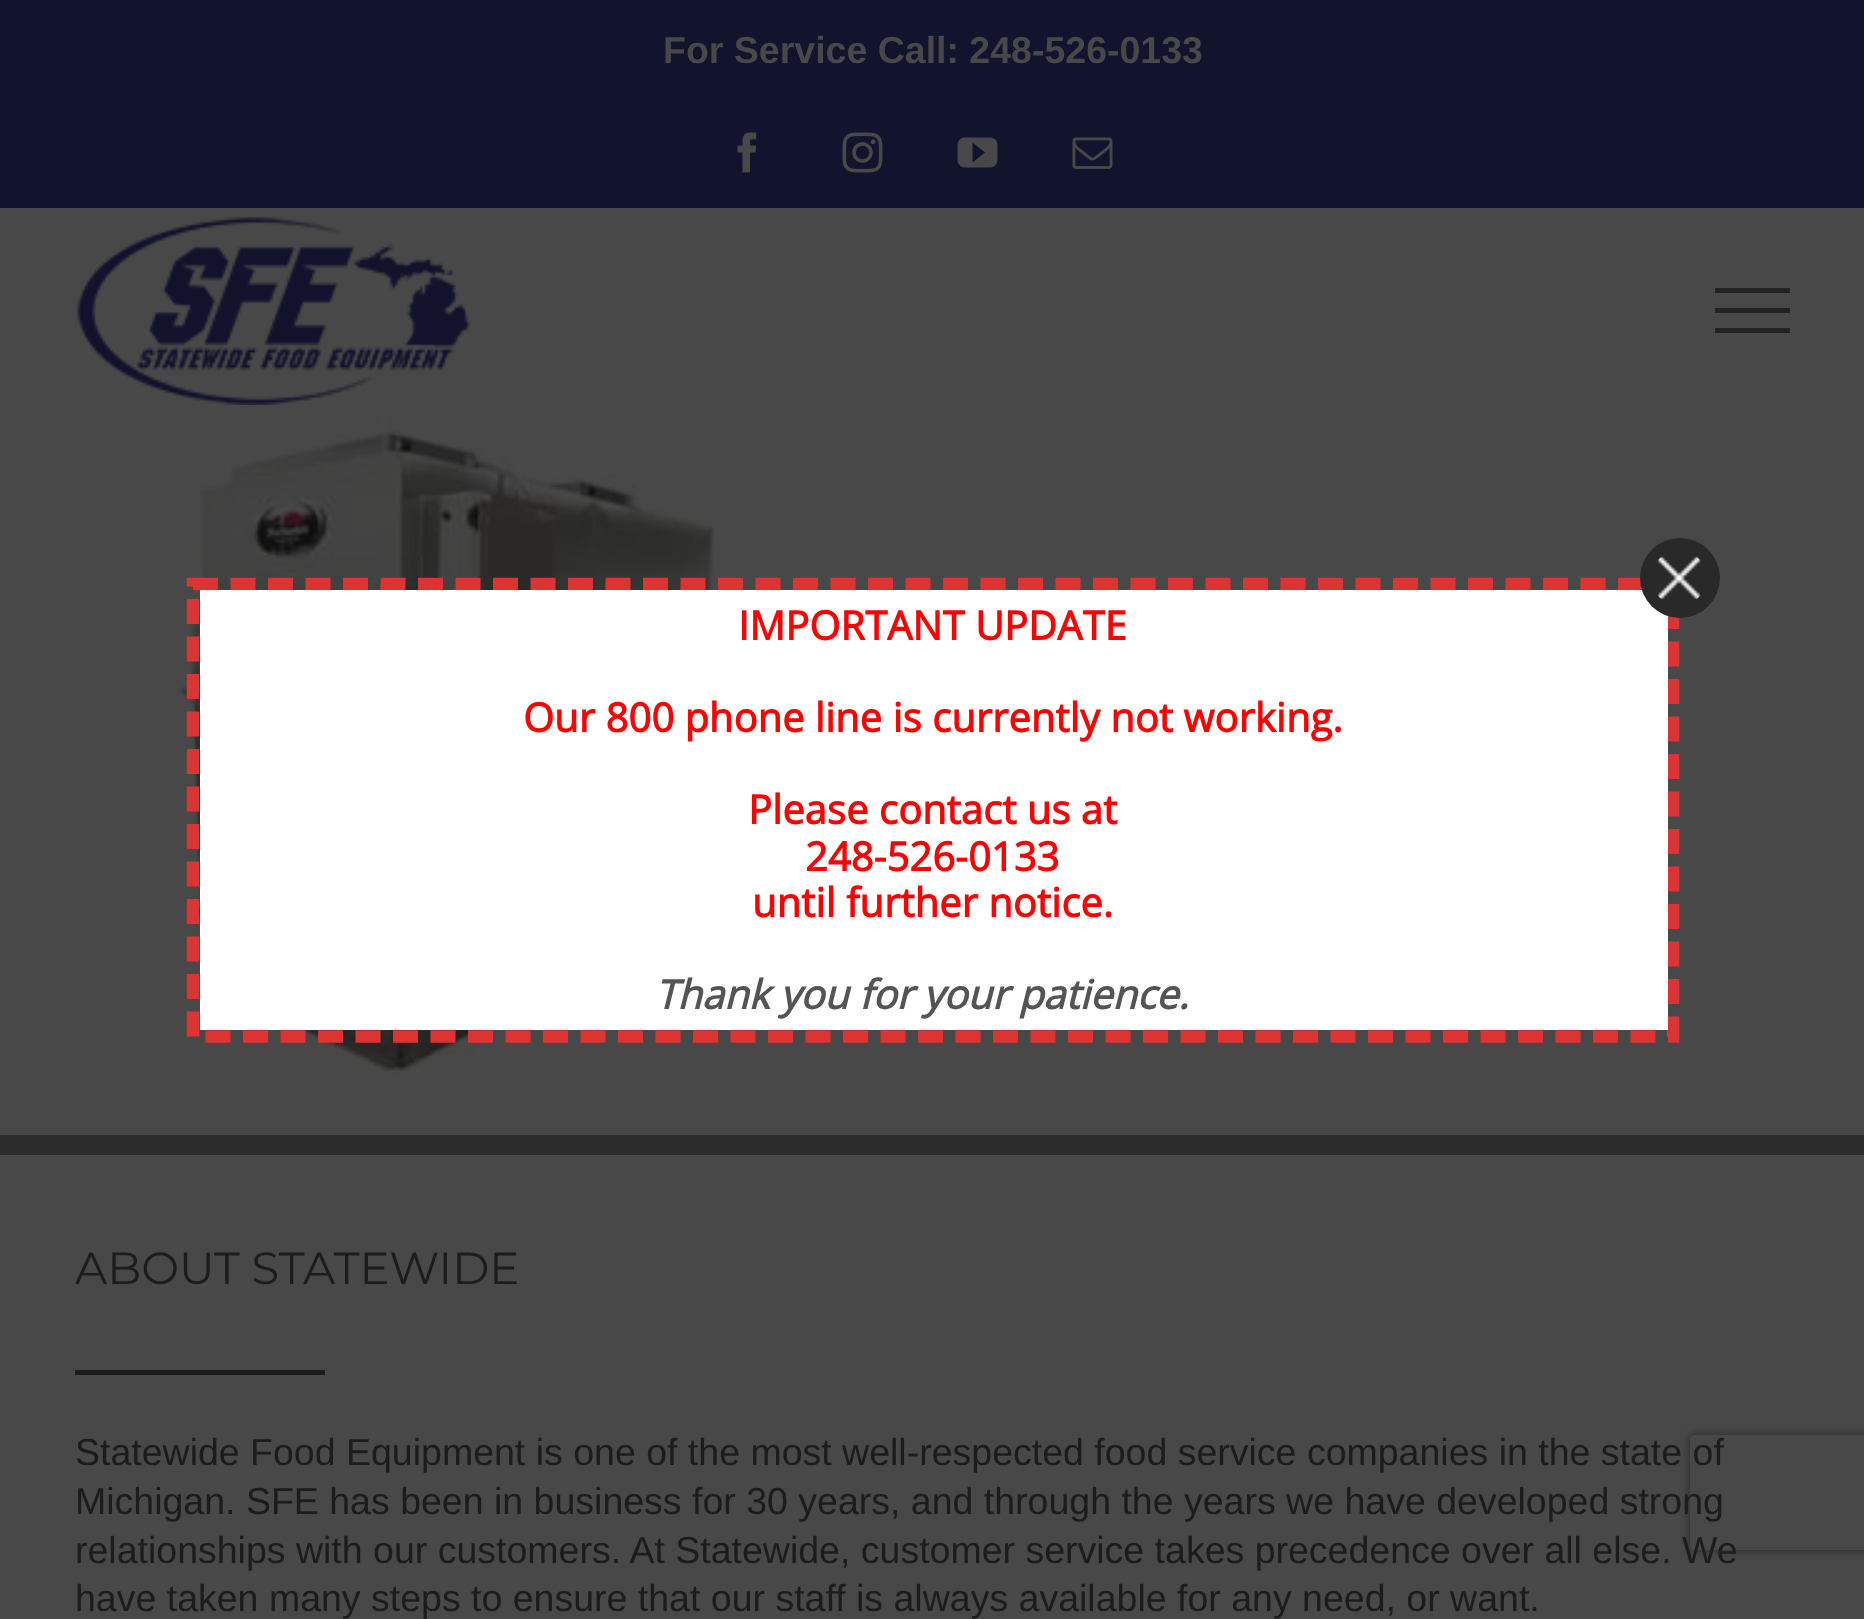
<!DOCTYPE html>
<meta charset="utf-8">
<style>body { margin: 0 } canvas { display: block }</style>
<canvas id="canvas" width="1864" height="1619"></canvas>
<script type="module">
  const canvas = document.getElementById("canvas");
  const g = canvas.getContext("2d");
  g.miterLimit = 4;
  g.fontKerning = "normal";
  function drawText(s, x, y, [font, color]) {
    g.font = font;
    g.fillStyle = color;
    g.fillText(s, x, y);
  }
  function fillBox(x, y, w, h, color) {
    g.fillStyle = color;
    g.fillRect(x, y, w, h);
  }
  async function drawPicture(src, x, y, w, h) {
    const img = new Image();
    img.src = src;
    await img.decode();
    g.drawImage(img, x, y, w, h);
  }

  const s1 = ["bold 37.5px Liberation Sans", "#484848"];
  const s2 = ["100 45px Montserrat", "#1C1C1C"];
  const s3 = ["37.5px Liberation Sans", "#1C1C1C"];
  const s4 = ["bold 40px Open Sans", "#FF0000"];
  const s5 = ["italic bold 40px Open Sans", "#545454"];

  fillBox(0, 0, 1864, 1619, "#484848");
  fillBox(0, 0, 1864, 208, "#12132C");
  drawText("For Service Call: 248-526-0133", 663, 63, s1);
  await drawPicture("pic1.png", 737, 132, 20, 41);
  await drawPicture("pic2.png", 842, 132, 41, 41);
  await drawPicture("pic3.png", 957, 137, 41, 31);
  await drawPicture("pic4.png", 1072, 137, 41, 32);
  await drawPicture("pic5.png", 76, 216, 395, 189);
  fillBox(1715, 288, 75, 5, "#232323");
  fillBox(1715, 308, 75, 5, "#232323");
  fillBox(1715, 328, 75, 5, "#232323");
  await drawPicture("pic6.png", 175, 417, 541, 659);
  fillBox(0, 1135, 1864, 20, "#2C2C2C");
  drawText("ABOUT STATEWIDE", 75, 1284, s2);
  fillBox(75, 1370, 250, 5, "#1C1C1C");
  drawText("Statewide Food Equipment is one of the most well-respected food service companies in the state of", 75, 1465, s3);
  drawText("Michigan. SFE has been in business for 30 years, and through the years we have developed strong", 75, 1514, s3);
  drawText("relationships with our customers. At Statewide, customer service takes precedence over all else. We", 75, 1563, s3);
  drawText("have taken many steps to ensure that our staff is always available for any need, or want.", 75, 1611, s3);
  g.beginPath();
  g.moveTo(193, 584);
  g.lineTo(1673, 584);
  g.lineTo(1673, 1036.5);
  g.lineTo(193, 1036.5);
  g.closePath();
  g.strokeStyle = "#DD3333";
  g.lineWidth = 12.5;
  g.setLineDash([25, 12.5]);
  g.stroke();
  fillBox(200, 590, 1468, 440, "#FFFFFF");
  g.fillStyle = "#292929";
  g.beginPath();
  g.arc(1680, 578, 40, 0, Math.PI * 2);
  g.fill();
  await drawPicture("pic7.png", 1657, 556, 44, 44);
  drawText("IMPORTANT UPDATE", 738, 640, s4);
  drawText("Our 800 phone line is currently not working.", 523, 732, s4);
  drawText("Please contact us at", 748, 824, s4);
  drawText("248-526-0133", 805, 871, s4);
  drawText("until further notice.", 752, 917, s4);
  drawText("Thank you for your patience.", 655, 1009, s5);
  g.save();
  g.beginPath();
  g.moveTo(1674, 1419);
  g.lineTo(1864, 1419);
  g.lineTo(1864, 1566);
  g.lineTo(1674, 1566);
  g.closePath();
  g.moveTo(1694, 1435);
  g.lineTo(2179, 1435);
  g.bezierCurveTo(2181, 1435, 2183, 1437, 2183, 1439);
  g.lineTo(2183, 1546);
  g.bezierCurveTo(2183, 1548, 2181, 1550, 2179, 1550);
  g.lineTo(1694, 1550);
  g.bezierCurveTo(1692, 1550, 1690, 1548, 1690, 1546);
  g.lineTo(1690, 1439);
  g.bezierCurveTo(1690, 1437, 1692, 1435, 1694, 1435);
  g.closePath();
  g.clip("evenodd");
  g.fillStyle = "#272727";
  g.filter = "blur(5px)";
  g.beginPath();
  g.roundRect(1690, 1435, 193, 115, 4);
  g.fill();
  g.filter = "none";
  g.restore();
</script>
